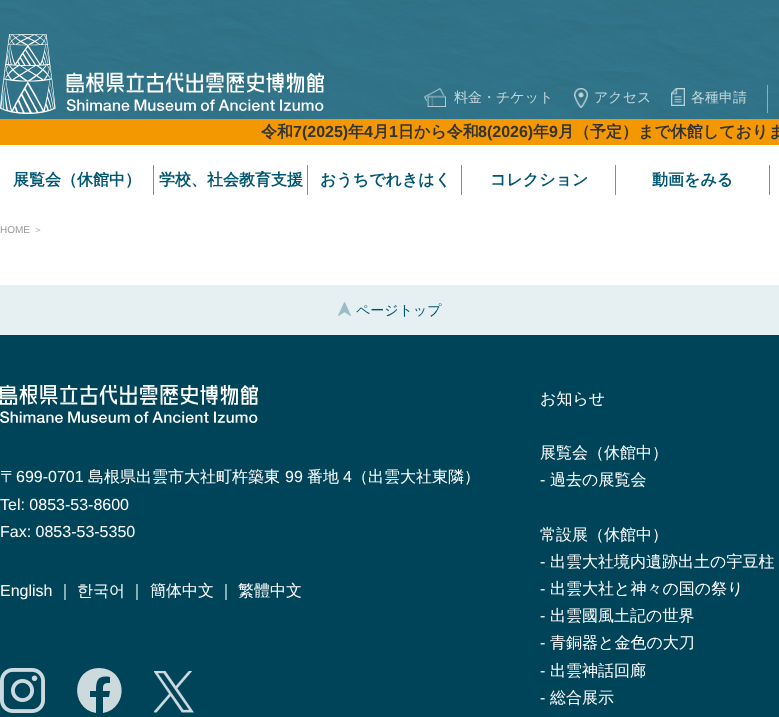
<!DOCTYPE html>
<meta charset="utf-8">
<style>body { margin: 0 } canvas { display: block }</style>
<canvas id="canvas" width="779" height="717"></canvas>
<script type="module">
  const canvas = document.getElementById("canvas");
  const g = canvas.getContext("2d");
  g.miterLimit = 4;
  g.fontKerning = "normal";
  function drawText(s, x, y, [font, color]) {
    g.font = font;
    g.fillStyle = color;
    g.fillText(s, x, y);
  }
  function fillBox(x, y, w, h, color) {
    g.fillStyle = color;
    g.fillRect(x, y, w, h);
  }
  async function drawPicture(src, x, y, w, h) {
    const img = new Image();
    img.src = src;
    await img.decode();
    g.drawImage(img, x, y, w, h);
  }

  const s1 = ["500 14px WenQuanYi Zen Hei", "#C1D5DB"];
  const s2 = ["bold 16px WenQuanYi Zen Hei", "#333333"];
  const s3 = ["bold 16px Liberation Sans", "#333333"];
  const s4 = ["bold 16px WenQuanYi Zen Hei", "#005773"];
  const s5 = ["10px Liberation Sans", "#999999"];
  const s6 = ["500 10px WenQuanYi Zen Hei", "#999999"];
  const s7 = ["500 14px WenQuanYi Zen Hei", "#005773"];
  const s8 = ["500 16px WenQuanYi Zen Hei", "#FFFFFF"];
  const s9 = ["16px Liberation Sans", "#FFFFFF"];

  fillBox(0, 0, 779, 717, "#FFFFFF");
  await drawPicture("pic1.png", 0, 0, 779, 119);
  await drawPicture("pic2.png", 0, 34, 324, 80);
  await drawPicture("pic3.png", 424, 88, 22, 19);
  drawText("料金・チケット", 454, 102, s1);
  await drawPicture("pic4.png", 574, 88, 14, 20);
  drawText("アクセス", 594, 102, s1);
  await drawPicture("pic5.png", 671, 88, 14, 18);
  drawText("各種申請", 691, 102, s1);
  fillBox(767, 85, 1, 28, "rgba(178, 205, 212, 0.7)");
  fillBox(0, 119, 779, 26, "#F39801");
  drawText("令和", 261, 137, s2);
  drawText("7(2025)", 293, 137, s3);
  drawText("年", 348, 137, s2);
  drawText("4", 364, 137, s3);
  drawText("月", 373, 137, s2);
  drawText("1", 389, 137, s3);
  drawText("日から令和", 398, 137, s2);
  drawText("8(2026)", 478, 137, s3);
  drawText("年", 533, 137, s2);
  drawText("9", 549, 137, s3);
  drawText("月（予定）まで休館しておりま", 558, 137, s2);
  fillBox(153, 165, 1, 30, "#669AAB");
  drawText("展覧会（休館中）", 13, 185, s4);
  fillBox(307, 165, 1, 30, "#669AAB");
  drawText("学校、社会教育支援", 159, 185, s4);
  fillBox(461, 165, 1, 30, "#669AAB");
  drawText("おうちでれきはく", 320, 185, s4);
  fillBox(615, 165, 1, 30, "#669AAB");
  drawText("コレクション", 490, 185, s4);
  fillBox(769, 165, 1, 30, "#669AAB");
  drawText("動画をみる", 652, 185, s4);
  drawText("HOME", 0, 233, s5);
  drawText("＞", 33, 233, s6);
  fillBox(0, 285, 779, 50, "#E6EFF1");
  await drawPicture("pic6.png", 338, 302, 13, 14);
  drawText("ページトップ", 356, 315, s7);
  fillBox(0, 335, 779, 382, "#00445A");
  await drawPicture("pic7.png", 0, 385, 258, 38);
  drawText("〒", 0, 482, s8);
  drawText("699-0701", 16, 482, s9);
  drawText("島根県出雲市大社町杵築東", 88, 482, s8);
  drawText("99", 285, 482, s9);
  drawText("番地", 307, 482, s8);
  drawText("4", 343, 482, s9);
  drawText("（出雲大社東隣）", 352, 482, s8);
  drawText("Tel: 0853-53-8600", 0, 510, s9);
  drawText("Fax: 0853-53-5350", 0, 537, s9);
  drawText("English", 0, 596, s9);
  drawText("｜", 57, 596, s8);
  drawText("한국어", 77, 596, s8);
  drawText("｜", 129, 596, s8);
  drawText("簡体中文", 150, 596, s8);
  drawText("｜", 218, 596, s8);
  drawText("繁體中文", 238, 596, s8);
  await drawPicture("pic8.png", 0, 668, 45, 45);
  g.fillStyle = "#CCDADE";
  g.beginPath();
  g.moveTo(99, 668);
  g.bezierCurveTo(72, 668, 69, 708, 96, 713);
  g.lineTo(96, 697);
  g.lineTo(90, 697);
  g.lineTo(90, 691);
  g.lineTo(96, 691);
  g.bezierCurveTo(96, 680, 98, 675, 110, 677);
  g.lineTo(110, 683);
  g.bezierCurveTo(103, 683, 103, 684, 103, 691);
  g.lineTo(110, 691);
  g.lineTo(109, 697);
  g.lineTo(103, 697);
  g.lineTo(103, 713);
  g.bezierCurveTo(130, 708, 127, 668, 99, 668);
  g.fill();
  await drawPicture("pic9.png", 154, 671, 40, 42);
  drawText("お知らせ", 540, 404, s8);
  drawText("展覧会（休館中）", 540, 458, s8);
  drawText("-", 540, 485, s9);
  drawText("過去の展覧会", 550, 485, s8);
  drawText("常設展（休館中）", 540, 540, s8);
  drawText("-", 540, 567, s9);
  drawText("出雲大社境内遺跡出土の宇豆柱", 550, 567, s8);
  drawText("-", 540, 594, s9);
  drawText("出雲大社と神々の国の祭り", 550, 594, s8);
  drawText("-", 540, 621, s9);
  drawText("出雲國風土記の世界", 550, 621, s8);
  drawText("-", 540, 648, s9);
  drawText("青銅器と金色の大刀", 550, 648, s8);
  drawText("-", 540, 676, s9);
  drawText("出雲神話回廊", 550, 676, s8);
  drawText("-", 540, 703, s9);
  drawText("総合展示", 550, 703, s8);
</script>
